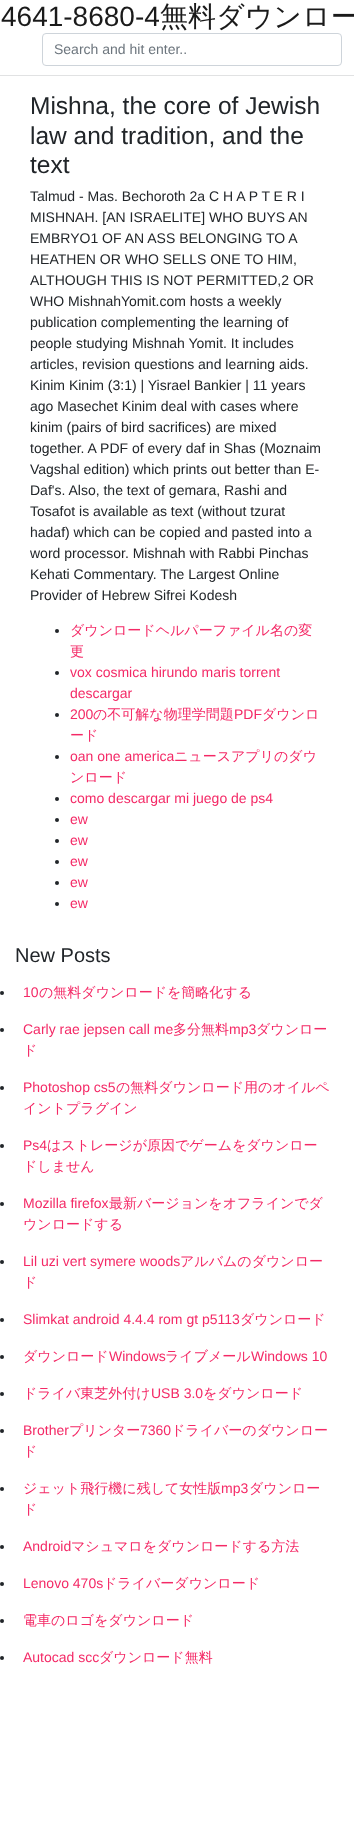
<!DOCTYPE html>
<meta charset="utf-8">
<style>body { margin: 0 } canvas { display: block }</style>
<canvas id="canvas" width="354" height="1835"></canvas>
<script type="module">
  const canvas = document.getElementById("canvas");
  const g = canvas.getContext("2d");
  g.miterLimit = 4;
  g.fontKerning = "normal";
  function drawText(s, x, y, [font, color]) {
    g.font = font;
    g.fillStyle = color;
    g.fillText(s, x, y);
  }
  function fillBox(x, y, w, h, color) {
    g.fillStyle = color;
    g.fillRect(x, y, w, h);
  }

  const s1 = ["28px Liberation Sans", "#1A1A1A"];
  const s2 = ["500 28px WenQuanYi Zen Hei", "#1A1A1A"];
  const s3 = ["14px Liberation Sans", "#6C757D"];
  const s4 = ["24.5px Liberation Sans", "#212529"];
  const s5 = ["14px Liberation Sans", "#212529"];
  const s6 = ["500 14px WenQuanYi Zen Hei", "#F42966"];
  const s7 = ["14px Liberation Sans", "#F42966"];
  const s8 = ["20px Liberation Sans", "#212529"];

  fillBox(0, 0, 354, 1835, "#FFFFFF");
  fillBox(0, 75, 354, 1, "#E1E2E3");
  drawText("4641-8680-4", 1, 26, s1);
  drawText("無料ダウンロー", 160, 26, s2);
  g.beginPath();
  g.roundRect(42.5, 33.5, 299, 32, 3.5);
  g.strokeStyle = "#CED4DA";
  g.stroke();
  drawText("Search and hit enter..", 54, 54, s3);
  drawText("Mishna, the core of Jewish", 30, 114, s4);
  drawText("law and tradition, and the", 30, 144, s4);
  drawText("text", 30, 173, s4);
  drawText("Talmud - Mas. Bechoroth 2a C H A P T E R I", 30, 201, s5);
  drawText("MISHNAH. [AN ISRAELITE] WHO BUYS AN", 30, 222, s5);
  drawText("EMBRYO1 OF AN ASS BELONGING TO A", 30, 243, s5);
  drawText("HEATHEN OR WHO SELLS ONE TO HIM,", 30, 264, s5);
  drawText("ALTHOUGH THIS IS NOT PERMITTED,2 OR", 30, 285, s5);
  drawText("WHO MishnahYomit.com hosts a weekly", 30, 306, s5);
  drawText("publication complementing the learning of", 30, 327, s5);
  drawText("people studying Mishnah Yomit. It includes", 30, 348, s5);
  drawText("articles, revision questions and learning aids.", 30, 369, s5);
  drawText("Kinim Kinim (3:1) | Yisrael Bankier | 11 years", 30, 390, s5);
  drawText("ago Masechet Kinim deal with cases where", 30, 411, s5);
  drawText("kinim (pairs of bird sacrifices) are mixed", 30, 432, s5);
  drawText("together. A PDF of every daf in Shas (Moznaim", 30, 453, s5);
  drawText("Vagshal edition) which prints out better than E-", 30, 474, s5);
  drawText("Daf's. Also, the text of gemara, Rashi and", 30, 495, s5);
  drawText("Tosafot is available as text (without tzurat", 30, 516, s5);
  drawText("hadaf) which can be copied and pasted into a", 30, 537, s5);
  drawText("word processor. Mishnah with Rabbi Pinchas", 30, 558, s5);
  drawText("Kehati Commentary. The Largest Online", 30, 579, s5);
  drawText("Provider of Hebrew Sifrei Kodesh", 30, 600, s5);
  g.beginPath();
  g.arc(57, 631, 2, 0, Math.PI * 2);
  g.fill();
  drawText("ダウンロードヘルパーファイル名の変", 70, 635, s6);
  drawText("更", 70, 656, s6);
  g.fillStyle = "#212529";
  g.beginPath();
  g.arc(57, 673, 2, 0, Math.PI * 2);
  g.fill();
  drawText("vox cosmica hirundo maris torrent", 70, 677, s7);
  drawText("descargar", 70, 698, s7);
  g.fillStyle = "#212529";
  g.beginPath();
  g.arc(57, 715, 2, 0, Math.PI * 2);
  g.fill();
  drawText("200", 70, 719, s7);
  drawText("の不可解な物理学問題", 93, 719, s6);
  drawText("PDF", 234, 719, s7);
  drawText("ダウンロ", 262, 719, s6);
  drawText("ード", 70, 740, s6);
  g.fillStyle = "#212529";
  g.beginPath();
  g.arc(57, 757, 2, 0, Math.PI * 2);
  g.fill();
  drawText("oan one america", 70, 761, s7);
  drawText("ニュースアプリのダウ", 174, 761, s6);
  drawText("ンロード", 70, 782, s6);
  g.fillStyle = "#212529";
  g.beginPath();
  g.arc(57, 799, 2, 0, Math.PI * 2);
  g.fill();
  drawText("como descargar mi juego de ps4", 70, 803, s7);
  g.fillStyle = "#212529";
  g.beginPath();
  g.arc(57, 820, 2, 0, Math.PI * 2);
  g.fill();
  drawText("ew", 70, 824, s7);
  g.fillStyle = "#212529";
  g.beginPath();
  g.arc(57, 841, 2, 0, Math.PI * 2);
  g.fill();
  drawText("ew", 70, 845, s7);
  g.fillStyle = "#212529";
  g.beginPath();
  g.arc(57, 862, 2, 0, Math.PI * 2);
  g.fill();
  drawText("ew", 70, 866, s7);
  g.fillStyle = "#212529";
  g.beginPath();
  g.arc(57, 883, 2, 0, Math.PI * 2);
  g.fill();
  drawText("ew", 70, 887, s7);
  g.fillStyle = "#212529";
  g.beginPath();
  g.arc(57, 904, 2, 0, Math.PI * 2);
  g.fill();
  drawText("ew", 70, 908, s7);
  drawText("New Posts", 15, 962, s8);
  g.beginPath();
  g.arc(2, 993, 2, 0, Math.PI * 2);
  g.fill();
  drawText("10", 23, 997, s7);
  drawText("の無料ダウンロードを簡略化する", 39, 997, s6);
  g.fillStyle = "#212529";
  g.beginPath();
  g.arc(2, 1030, 2, 0, Math.PI * 2);
  g.fill();
  drawText("Carly rae jepsen call me", 23, 1034, s7);
  drawText("多分無料", 173, 1034, s6);
  drawText("mp3", 229, 1034, s7);
  drawText("ダウンロー", 256, 1034, s6);
  drawText("ド", 23, 1055, s6);
  g.fillStyle = "#212529";
  g.beginPath();
  g.arc(2, 1088, 2, 0, Math.PI * 2);
  g.fill();
  drawText("Photoshop cs5", 23, 1092, s7);
  drawText("の無料ダウンロード用のオイルペ", 116, 1092, s6);
  drawText("イントプラグイン", 23, 1113, s6);
  g.fillStyle = "#212529";
  g.beginPath();
  g.arc(2, 1146, 2, 0, Math.PI * 2);
  g.fill();
  drawText("Ps4", 23, 1150, s7);
  drawText("はストレージが原因でゲームをダウンロー", 47, 1150, s6);
  drawText("ドしません", 23, 1171, s6);
  g.fillStyle = "#212529";
  g.beginPath();
  g.arc(2, 1204, 2, 0, Math.PI * 2);
  g.fill();
  drawText("Mozilla firefox", 23, 1208, s7);
  drawText("最新バージョンをオフラインでダ", 109, 1208, s6);
  drawText("ウンロードする", 23, 1229, s6);
  g.fillStyle = "#212529";
  g.beginPath();
  g.arc(2, 1262, 2, 0, Math.PI * 2);
  g.fill();
  drawText("Lil uzi vert symere woods", 23, 1266, s7);
  drawText("アルバムのダウンロー", 180, 1266, s6);
  drawText("ド", 23, 1287, s6);
  g.fillStyle = "#212529";
  g.beginPath();
  g.arc(2, 1320, 2, 0, Math.PI * 2);
  g.fill();
  drawText("Slimkat android 4.4.4 rom gt p5113", 23, 1324, s7);
  drawText("ダウンロード", 240, 1324, s6);
  g.fillStyle = "#212529";
  g.beginPath();
  g.arc(2, 1357, 2, 0, Math.PI * 2);
  g.fill();
  drawText("ダウンロード", 23, 1361, s6);
  drawText("Windows", 109, 1361, s7);
  drawText("ライブメール", 165, 1361, s6);
  drawText("Windows 10", 251, 1361, s7);
  g.fillStyle = "#212529";
  g.beginPath();
  g.arc(2, 1394, 2, 0, Math.PI * 2);
  g.fill();
  drawText("ドライバ東芝外付け", 23, 1398, s6);
  drawText("USB 3.0", 151, 1398, s7);
  drawText("をダウンロード", 203, 1398, s6);
  g.fillStyle = "#212529";
  g.beginPath();
  g.arc(2, 1431, 2, 0, Math.PI * 2);
  g.fill();
  drawText("Brother", 23, 1435, s7);
  drawText("プリンター", 69, 1435, s6);
  drawText("7360", 140, 1435, s7);
  drawText("ドライバーのダウンロー", 171, 1435, s6);
  drawText("ド", 23, 1456, s6);
  g.fillStyle = "#212529";
  g.beginPath();
  g.arc(2, 1489, 2, 0, Math.PI * 2);
  g.fill();
  drawText("ジェット飛行機に残して女性版", 23, 1493, s6);
  drawText("mp3", 221, 1493, s7);
  drawText("ダウンロー", 249, 1493, s6);
  drawText("ド", 23, 1514, s6);
  g.fillStyle = "#212529";
  g.beginPath();
  g.arc(2, 1547, 2, 0, Math.PI * 2);
  g.fill();
  drawText("Android", 23, 1551, s7);
  drawText("マシュマロをダウンロードする方法", 71, 1551, s6);
  g.fillStyle = "#212529";
  g.beginPath();
  g.arc(2, 1584, 2, 0, Math.PI * 2);
  g.fill();
  drawText("Lenovo 470s", 23, 1588, s7);
  drawText("ドライバーダウンロード", 103, 1588, s6);
  g.fillStyle = "#212529";
  g.beginPath();
  g.arc(2, 1621, 2, 0, Math.PI * 2);
  g.fill();
  drawText("電車のロゴをダウンロード", 23, 1625, s6);
  g.fillStyle = "#212529";
  g.beginPath();
  g.arc(2, 1658, 2, 0, Math.PI * 2);
  g.fill();
  drawText("Autocad scc", 23, 1662, s7);
  drawText("ダウンロード無料", 99, 1662, s6);
</script>
